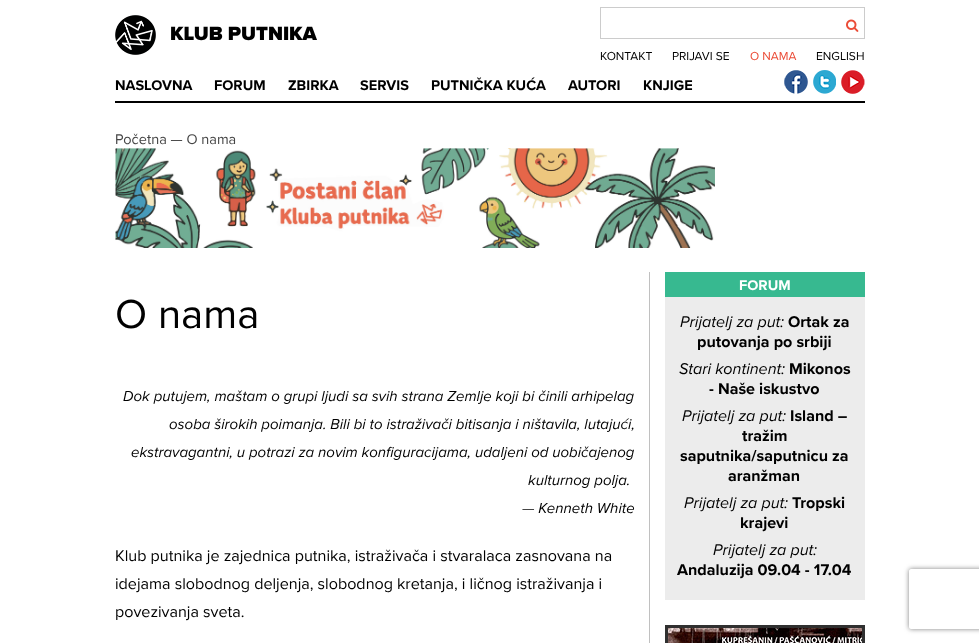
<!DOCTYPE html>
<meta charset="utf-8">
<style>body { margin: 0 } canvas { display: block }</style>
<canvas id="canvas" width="979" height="643"></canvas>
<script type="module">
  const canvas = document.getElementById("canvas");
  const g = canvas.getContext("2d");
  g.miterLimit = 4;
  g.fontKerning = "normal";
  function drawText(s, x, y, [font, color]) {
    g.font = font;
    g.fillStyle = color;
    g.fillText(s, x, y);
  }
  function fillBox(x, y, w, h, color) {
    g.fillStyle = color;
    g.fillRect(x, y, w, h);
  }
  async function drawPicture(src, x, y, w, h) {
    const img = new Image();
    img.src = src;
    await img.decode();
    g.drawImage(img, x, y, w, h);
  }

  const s1 = ["900 20px Proxima Nova", "#000000"];
  const s2 = ["12px Proxima Nova", "#000000"];
  const s3 = ["12px Proxima Nova", "#EB4C37"];
  const s4 = ["bold 14.5px Proxima Nova", "#000000"];
  const s5 = ["14.5px Proxima Nova", "#444444"];
  const s6 = ["42px Proxima Nova", "#000000"];
  const s7 = ["italic 15px Proxima Nova", "#000000"];
  const s8 = ["16.1px Proxima Nova", "#000000"];
  const s9 = ["bold 14.5px Proxima Nova", "#FFFFFF"];
  const s10 = ["italic 16.1px Proxima Nova", "#000000"];
  const s11 = ["bold 16.1px Proxima Nova", "#000000"];

  fillBox(0, 0, 979, 643, "#FFFFFF");
  await drawPicture("pic1.png", 115, 15, 41, 40);
  drawText("KLUB PUTNIKA", 170, 40, s1);
  g.strokeStyle = "#CCCCCC";
  g.strokeRect(600.5, 7.5, 264, 31);
  await drawPicture("pic2.png", 846, 19, 13, 13);
  drawText("KONTAKT", 600, 60, s2);
  drawText("PRIJAVI SE", 672, 60, s2);
  drawText("O NAMA", 750, 60, s3);
  drawText("ENGLISH", 816, 60, s2);
  fillBox(115, 101, 750, 2, "#000000");
  drawText("NASLOVNA", 115, 90, s4);
  drawText("FORUM", 214, 90, s4);
  drawText("ZBIRKA", 288, 90, s4);
  drawText("SERVIS", 360, 90, s4);
  drawText("PUTNIČKA KUĆA", 431, 90, s4);
  drawText("AUTORI", 568, 90, s4);
  drawText("KNJIGE", 643, 90, s4);
  await drawPicture("pic3.png", 784, 70, 24, 24);
  await drawPicture("pic4.png", 813, 70, 23, 24);
  await drawPicture("pic5.png", 841, 70, 24, 24);
  drawText("Početna — O nama", 115, 144, s5);
  await drawPicture("pic6.png", 115, 148, 600, 100);
  fillBox(649, 272, 1, 371, "#C0C0C0");
  drawText("O nama", 115, 328, s6);
  drawText("Dok putujem, maštam o grupi ljudi sa svih strana Zemlje koji bi činili arhipelag", 123, 401, s7);
  drawText("osoba širokih poimanja. Bili bi to istraživači bitisanja i ništavila, lutajući,", 169, 429, s7);
  drawText("ekstravagantni, u potrazi za novim konfiguracijama, udaljeni od uobičajenog", 131, 457, s7);
  drawText("kulturnog polja.", 528, 485, s7);
  drawText("— Kenneth White", 522, 513, s7);
  drawText("Klub putnika je zajednica putnika, istraživača i stvaralaca zasnovana na", 115, 561, s8);
  drawText("idejama slobodnog deljenja, slobodnog kretanja, i ličnog istraživanja i", 115, 589, s8);
  drawText("povezivanja sveta.", 115, 617, s8);
  fillBox(665, 297, 200, 303, "#ECECEC");
  fillBox(665, 272, 200, 25, "#37B990");
  drawText("FORUM", 739, 290, s9);
  drawText("Prijatelj za put:", 680, 327, s10);
  drawText("Ortak za", 788, 327, s11);
  drawText("putovanja po srbiji", 697, 347, s11);
  drawText("Stari kontinent:", 679, 374, s10);
  drawText("Mikonos", 789, 374, s11);
  drawText("- Naše iskustvo", 709, 394, s11);
  drawText("Prijatelj za put:", 682, 421, s10);
  drawText("Island –", 790, 421, s11);
  drawText("tražim", 742, 441, s11);
  drawText("saputnika/saputnicu za", 680, 461, s11);
  drawText("aranžman", 728, 481, s11);
  drawText("Prijatelj za put:", 684, 508, s10);
  drawText("Tropski", 792, 508, s11);
  drawText("krajevi", 740, 528, s11);
  drawText("Prijatelj za put:", 713, 555, s10);
  drawText("Andaluzija 09.04 - 17.04", 677, 575, s11);
  g.strokeStyle = "#303030";
  g.lineWidth = 3;
  g.strokeRect(666.5, 626.5, 197, 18);
  await drawPicture("pic7.png", 668, 628, 194, 15);
  g.save();
  g.beginPath();
  g.moveTo(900, 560);
  g.lineTo(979, 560);
  g.lineTo(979, 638);
  g.lineTo(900, 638);
  g.closePath();
  g.moveTo(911, 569);
  g.lineTo(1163, 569);
  g.bezierCurveTo(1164, 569, 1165, 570, 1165, 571);
  g.lineTo(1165, 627);
  g.bezierCurveTo(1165, 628, 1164, 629, 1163, 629);
  g.lineTo(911, 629);
  g.bezierCurveTo(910, 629, 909, 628, 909, 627);
  g.lineTo(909, 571);
  g.bezierCurveTo(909, 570, 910, 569, 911, 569);
  g.closePath();
  g.clip("evenodd");
  g.fillStyle = "#808080";
  g.filter = "blur(2.5px)";
  g.beginPath();
  g.roundRect(909, 569, 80, 60, 2);
  g.fill();
  g.filter = "none";
  g.restore();
</script>
